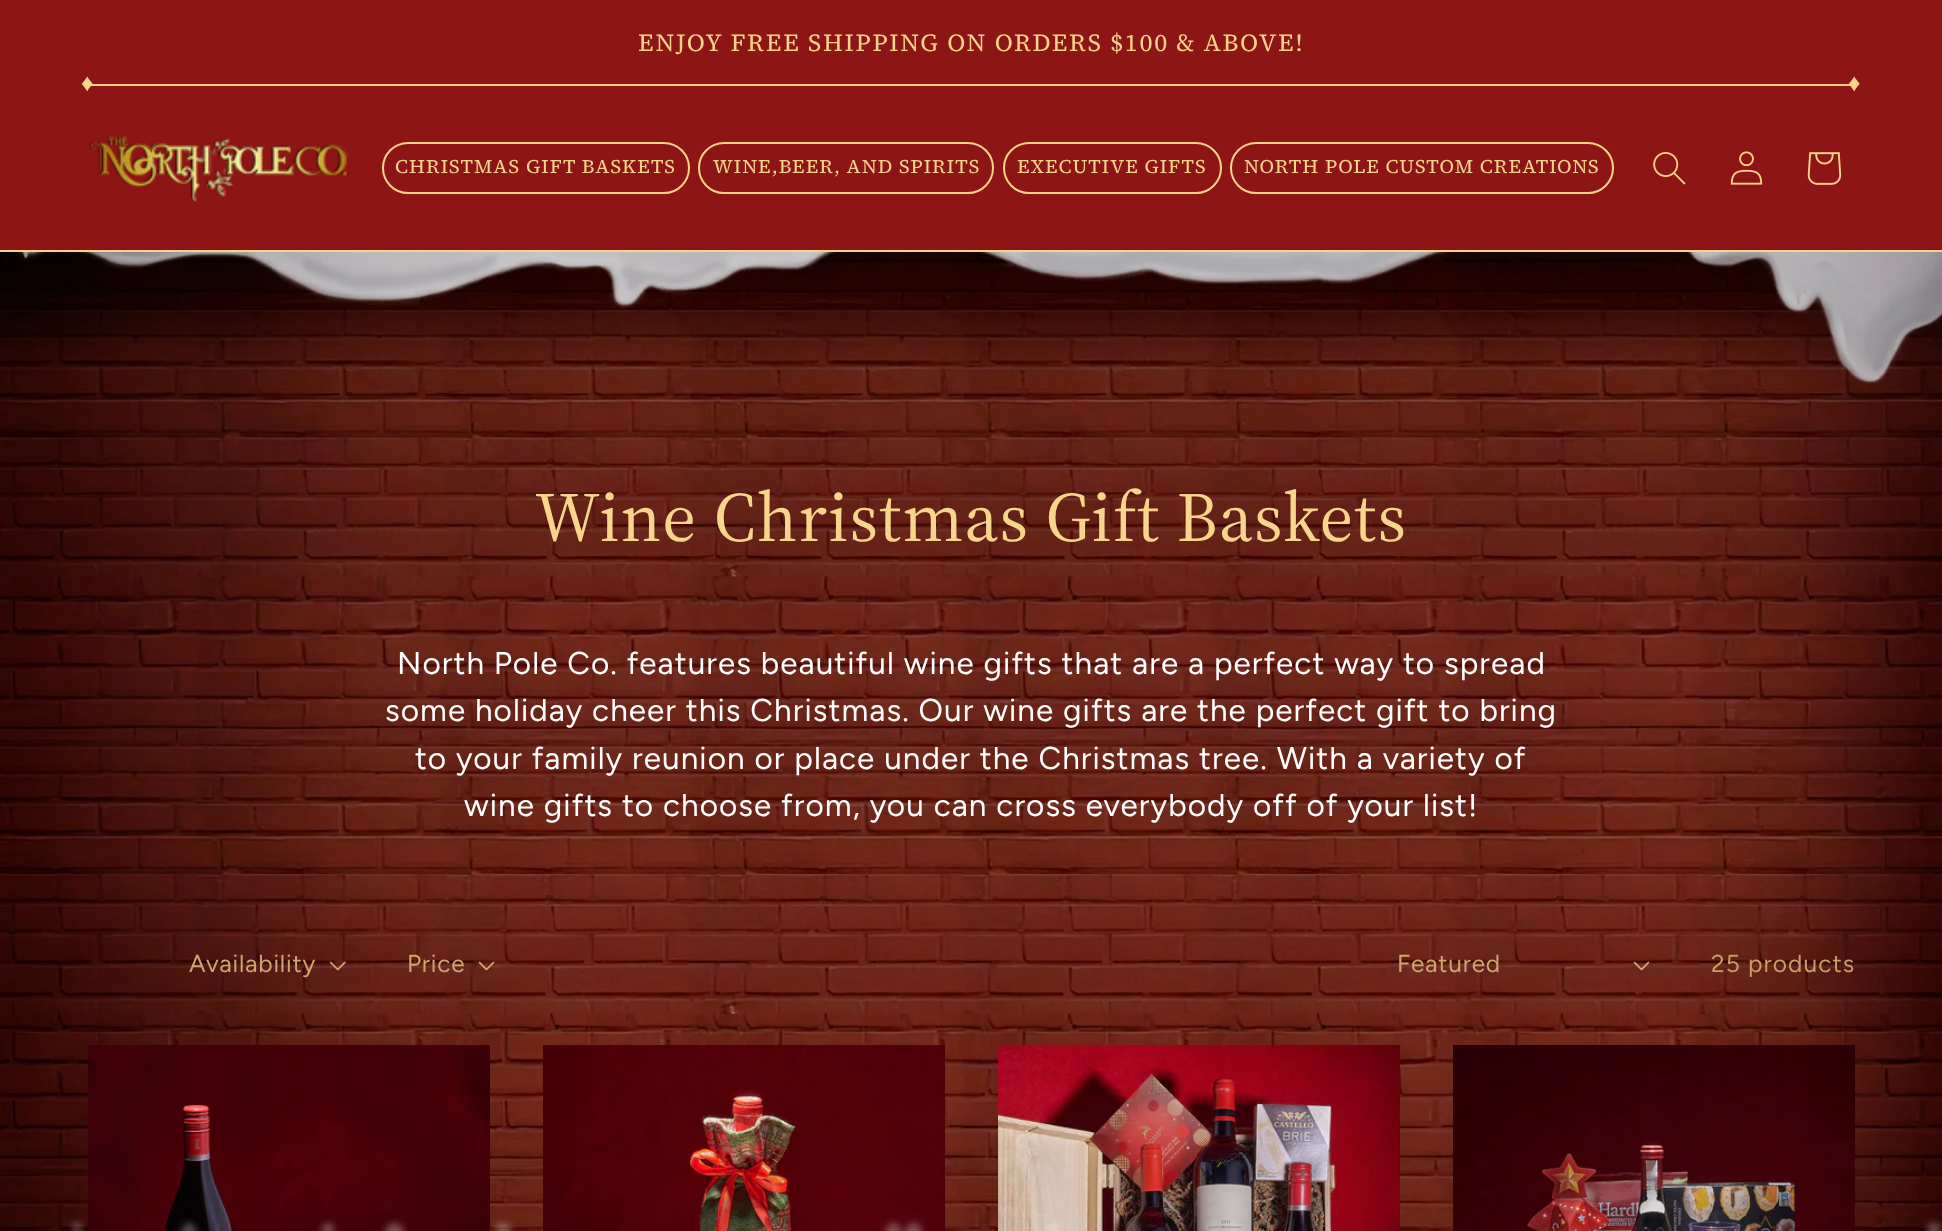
<!DOCTYPE html>
<meta charset="utf-8">
<style>body { margin: 0 } canvas { display: block }</style>
<canvas id="canvas" width="1942" height="1231"></canvas>
<script type="module">
  const canvas = document.getElementById("canvas");
  const g = canvas.getContext("2d");
  g.miterLimit = 4;
  g.fontKerning = "normal";
  function drawText(s, x, y, [font, color]) {
    g.font = font;
    g.fillStyle = color;
    g.fillText(s, x, y);
  }
  function fillBox(x, y, w, h, color) {
    g.fillStyle = color;
    g.fillRect(x, y, w, h);
  }
  async function drawPicture(src, x, y, w, h) {
    const img = new Image();
    img.src = src;
    await img.decode();
    g.drawImage(img, x, y, w, h);
  }

  const s1 = ["24.5px 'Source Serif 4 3'", "#F8D58D"];
  const s2 = ["24.5px Liberation Sans", "#F8D58D"];
  const s3 = ["19.25px 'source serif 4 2'", "#F8D58D"];
  const s4 = ["70px 'Source Serif 4'", "#F8D58D"];
  const s5 = ["31.5px Figtree", "#FFFFFF"];
  const s6 = ["24.5px Figtree", "#CEA56E"];
  const s7 = ["24.5px Figtree", "#C89D68"];

  fillBox(0, 0, 1942, 1231, "#8E1515");
  fillBox(88, 84, 1767, 2, "#F8D58D");
  g.letterSpacing = "1.75px";
  drawText("ENJOY FREE SHIPPING ON ORDERS $100 & ABOVE!", 638, 51, s1);
  g.letterSpacing = "1.05px";
  drawText("♦", 81, 91, s2);
  drawText("♦", 1848, 91, s2);
  fillBox(0, 250, 1942, 2, "#F8D58D");
  await drawPicture("pic1.png", 89, 136, 260, 66);
  g.beginPath();
  g.roundRect(383, 143, 306, 50, 25);
  g.strokeStyle = "#F8D58D";
  g.lineWidth = 2;
  g.stroke();
  drawText("CHRISTMAS GIFT BASKETS", 395, 173, s3);
  g.beginPath();
  g.roundRect(699, 143, 294, 50, 25);
  g.stroke();
  drawText("WINE,BEER, AND SPIRITS", 713, 173, s3);
  g.beginPath();
  g.roundRect(1004, 143, 217, 50, 25);
  g.stroke();
  drawText("EXECUTIVE GIFTS", 1017, 173, s3);
  g.beginPath();
  g.roundRect(1231, 143, 382, 50, 25);
  g.stroke();
  drawText("NORTH POLE CUSTOM CREATIONS", 1244, 173, s3);
  await drawPicture("pic2.png", 1653, 152, 33, 33);
  await drawPicture("pic3.png", 1730, 151, 33, 34);
  await drawPicture("pic4.png", 1807, 152, 35, 33);
  await drawPicture("pic5.png", 0, 252, 1942, 979);
  drawText("Wine Christmas Gift Baskets", 535, 541, s4);
  drawText("North Pole Co. features beautiful wine gifts that are a perfect way to spread", 397, 674, s5);
  drawText("some holiday cheer this Christmas. Our wine gifts are the perfect gift to bring", 385, 721, s5);
  drawText("to your family reunion or place under the Christmas tree. With a variety of", 415, 769, s5);
  drawText("wine gifts to choose from, you can cross everybody off of your list!", 464, 816, s5);
  g.letterSpacing = "0.75px";
  drawText("Availability", 189, 972, s6);
  await drawPicture("pic6.png", 329, 961, 17, 10);
  drawText("Price", 407, 972, s6);
  await drawPicture("pic7.png", 478, 961, 17, 10);
  drawText("Featured", 1397, 972, s6);
  await drawPicture("pic8.png", 1633, 961, 17, 10);
  g.letterSpacing = "1.05px";
  drawText("25 products", 1711, 972, s7);
  await drawPicture("pic9.png", 88, 1045, 402, 186);
  await drawPicture("pic10.png", 543, 1045, 402, 186);
  await drawPicture("pic11.png", 998, 1045, 402, 186);
  await drawPicture("pic12.png", 1453, 1045, 402, 186);
  g.fillStyle = "rgba(255, 255, 255, 0.3)";
  g.filter = "blur(3.5px)";
  g.beginPath();
  g.roundRect(72, 1223, 10, 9, 4.5);
  g.fill();
  g.filter = "none";
  g.filter = "blur(3.5px)";
  g.beginPath();
  g.roundRect(182, 1223, 14, 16, 7);
  g.fill();
  g.filter = "none";
  g.filter = "blur(3.5px)";
  g.beginPath();
  g.roundRect(322, 1223, 12, 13, 6);
  g.fill();
  g.filter = "none";
  g.filter = "blur(3.5px)";
  g.beginPath();
  g.roundRect(385, 1223, 19, 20, 9.5);
  g.fill();
  g.filter = "none";
  g.filter = "blur(3.5px)";
  g.beginPath();
  g.roundRect(495, 1223, 16, 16, 8);
  g.fill();
  g.filter = "none";
  g.filter = "blur(3.5px)";
  g.beginPath();
  g.roundRect(886, 1223, 15, 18, 7.5);
  g.fill();
  g.filter = "none";
  g.filter = "blur(3.5px)";
  g.beginPath();
  g.roundRect(905, 1223, 17, 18, 8.5);
  g.fill();
  g.filter = "none";
  g.filter = "blur(3.5px)";
  g.beginPath();
  g.roundRect(1050, 1223, 9, 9, 4.5);
  g.fill();
  g.filter = "none";
  g.filter = "blur(3.5px)";
  g.beginPath();
  g.roundRect(1131, 1223, 8, 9, 4);
  g.fill();
  g.filter = "none";
  g.filter = "blur(3.5px)";
  g.beginPath();
  g.roundRect(1209, 1223, 9, 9, 4.5);
  g.fill();
  g.filter = "none";
  g.filter = "blur(3.5px)";
  g.beginPath();
  g.roundRect(1229, 1223, 8, 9, 4);
  g.fill();
  g.filter = "none";
  g.filter = "blur(3.5px)";
  g.beginPath();
  g.roundRect(1927, 1223, 14, 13, 6.5);
  g.fill();
  g.filter = "none";
</script>
